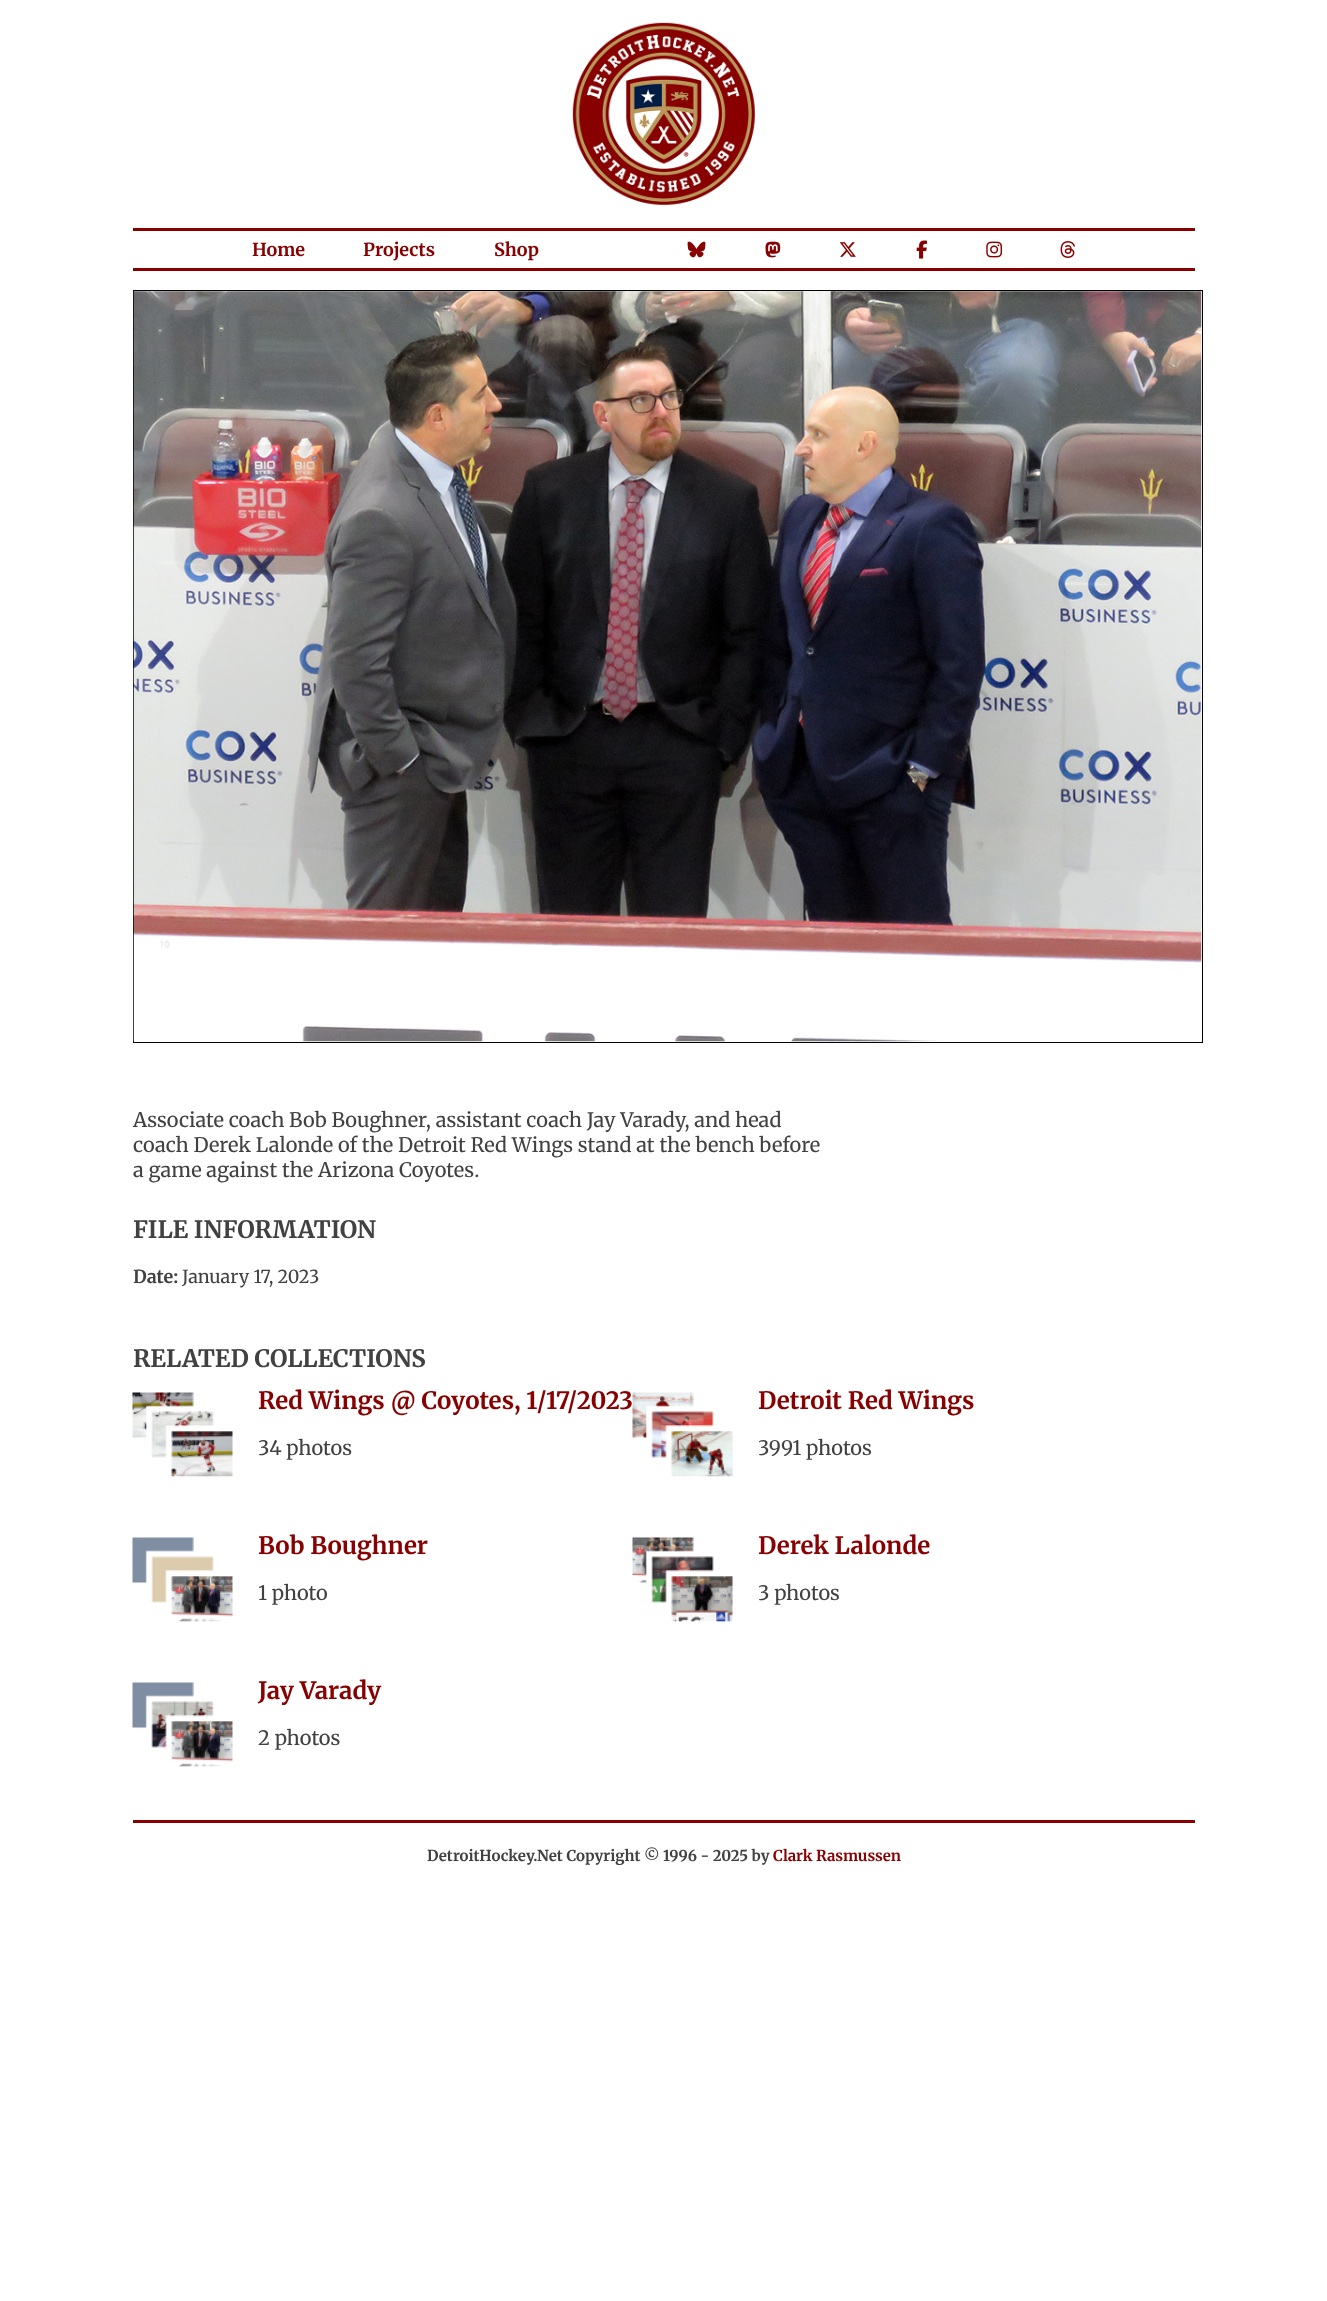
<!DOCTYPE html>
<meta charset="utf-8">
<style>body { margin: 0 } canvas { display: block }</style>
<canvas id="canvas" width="1327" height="2301"></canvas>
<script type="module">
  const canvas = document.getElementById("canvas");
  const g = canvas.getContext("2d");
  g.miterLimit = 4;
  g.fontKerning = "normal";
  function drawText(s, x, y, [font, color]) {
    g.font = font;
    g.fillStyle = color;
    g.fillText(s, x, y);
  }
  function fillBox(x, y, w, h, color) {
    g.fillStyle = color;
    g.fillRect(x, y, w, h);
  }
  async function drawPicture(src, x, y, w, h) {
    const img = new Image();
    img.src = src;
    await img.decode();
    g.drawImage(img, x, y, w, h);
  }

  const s1 = ["bold 18px Merriweather", "#880000"];
  const s2 = ["20px Merriweather", "#414141"];
  const s3 = ["bold 24px Merriweather", "#414141"];
  const s4 = ["bold 18px Merriweather", "#414141"];
  const s5 = ["18px Merriweather", "#414141"];
  const s6 = ["bold 24px Merriweather", "#880000"];
  const s7 = ["bold 15px Merriweather", "#414141"];
  const s8 = ["bold 15px Merriweather", "#880000"];

  fillBox(0, 0, 1327, 2301, "#FFFFFF");
  await drawPicture("pic1.png", 572, 22, 184, 184);
  fillBox(133, 228, 1062, 3, "#880000");
  fillBox(133, 268, 1062, 3, "#880000");
  drawText("Home", 252, 256, s1);
  drawText("Projects", 363, 256, s1);
  drawText("Shop", 494, 256, s1);
  await drawPicture("pic2.png", 687, 241, 19, 17);
  await drawPicture("pic3.png", 765, 241, 16, 17);
  await drawPicture("pic4.png", 839, 242, 17, 15);
  await drawPicture("pic5.png", 916, 240, 11, 19);
  await drawPicture("pic6.png", 986, 241, 16, 17);
  await drawPicture("pic7.png", 1060, 241, 15, 17);
  g.strokeStyle = "#000000";
  g.strokeRect(133.5, 290.5, 1069, 752);
  await drawPicture("pic8.png", 133, 291, 1069, 751);
  drawText("Associate coach Bob Boughner, assistant coach Jay Varady, and head", 133, 1127, s2);
  drawText("coach Derek Lalonde of the Detroit Red Wings stand at the bench before", 133, 1152, s2);
  drawText("a game against the Arizona Coyotes.", 133, 1177, s2);
  drawText("FILE INFORMATION", 133, 1238, s3);
  drawText("Date:", 133, 1283, s4);
  drawText("January 17, 2023", 182, 1283, s5);
  drawText("RELATED COLLECTIONS", 133, 1367, s3);
  await drawPicture("pic9.png", 132, 1392, 101, 85);
  drawText("Red Wings @ Coyotes, 1/17/2023", 258, 1409, s6);
  drawText("34 photos", 258, 1455, s2);
  await drawPicture("pic10.png", 632, 1392, 101, 85);
  drawText("Detroit Red Wings", 758, 1409, s6);
  drawText("3991 photos", 758, 1455, s2);
  await drawPicture("pic11.png", 132, 1537, 101, 85);
  drawText("Bob Boughner", 258, 1554, s6);
  drawText("1 photo", 258, 1600, s2);
  await drawPicture("pic12.png", 632, 1537, 101, 85);
  drawText("Derek Lalonde", 758, 1554, s6);
  drawText("3 photos", 758, 1600, s2);
  await drawPicture("pic13.png", 132, 1682, 101, 85);
  drawText("Jay Varady", 258, 1699, s6);
  drawText("2 photos", 258, 1745, s2);
  fillBox(133, 1820, 1062, 3, "#880000");
  drawText("DetroitHockey.Net Copyright © 1996 - 2025 by", 427, 1861, s7);
  drawText("Clark Rasmussen", 773, 1861, s8);
</script>
